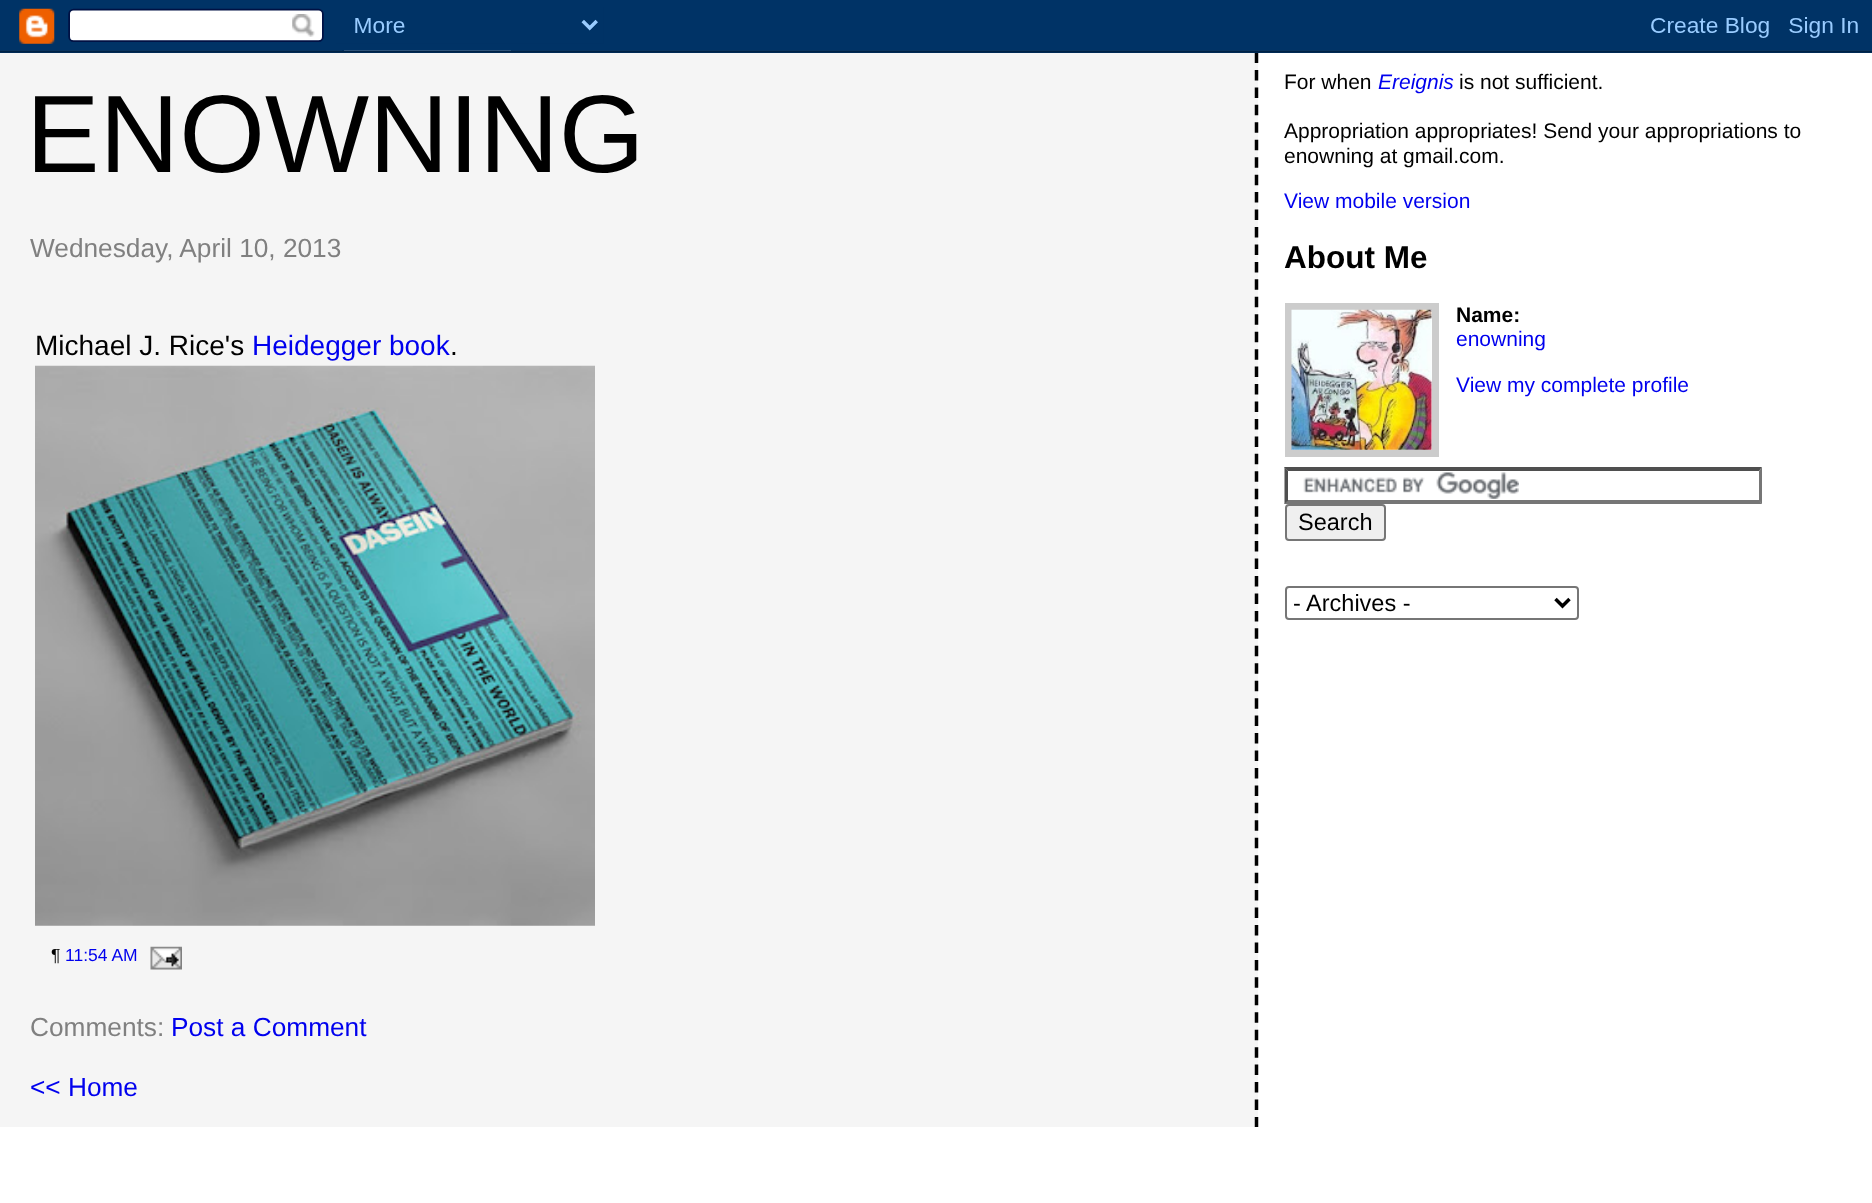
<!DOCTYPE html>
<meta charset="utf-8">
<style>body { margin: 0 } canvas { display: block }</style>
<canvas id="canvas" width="1872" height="1203"></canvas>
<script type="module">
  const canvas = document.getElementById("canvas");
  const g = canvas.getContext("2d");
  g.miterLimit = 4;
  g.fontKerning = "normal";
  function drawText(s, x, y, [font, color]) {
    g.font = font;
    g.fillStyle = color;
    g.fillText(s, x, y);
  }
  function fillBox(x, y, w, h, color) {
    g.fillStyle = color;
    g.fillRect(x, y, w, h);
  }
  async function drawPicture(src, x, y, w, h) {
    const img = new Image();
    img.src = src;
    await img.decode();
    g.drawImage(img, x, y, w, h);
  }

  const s1 = ["110.25px Liberation Sans", "#000000"];
  const s2 = ["26.25px Liberation Sans", "#808080"];
  const s3 = ["28px Liberation Sans", "#000000"];
  const s4 = ["28px Liberation Sans", "#0000EE"];
  const s5 = ["17.5px Liberation Sans", "#000000"];
  const s6 = ["17.5px Liberation Sans", "#0000EE"];
  const s7 = ["26.25px Liberation Sans", "#0000EE"];
  const s8 = ["21px Liberation Sans", "#000000"];
  const s9 = ["italic 21px Liberation Sans", "#0000EE"];
  const s10 = ["21px Liberation Sans", "#0000EE"];
  const s11 = ["bold 31.5px Liberation Sans", "#000000"];
  const s12 = ["bold 21px Liberation Sans", "#000000"];
  const s13 = ["23.5px Liberation Sans", "#000000"];

  fillBox(0, 0, 1872, 1203, "#FFFFFF");
  fillBox(0, 53, 1258, 1074, "#F5F5F5");
  g.beginPath();
  g.moveTo(1256.5, 52.5);
  g.lineTo(1256.5, 1127);
  g.strokeStyle = "#000000";
  g.lineWidth = 3.5;
  g.setLineDash([10.5, 6.95]);
  g.stroke();
  await drawPicture("pic1.png", 0, 0, 1872, 53);
  drawText("ENOWNING", 26, 172, s1);
  drawText("Wednesday, April 10, 2013", 30, 257, s2);
  drawText("Michael J. Rice's", 35, 355, s3);
  drawText("Heidegger book", 252, 355, s4);
  drawText(".", 450, 355, s3);
  await drawPicture("pic2.png", 35, 365, 560, 561);
  drawText("¶", 51, 961, s5);
  drawText("11:54 AM", 65, 961, s6);
  await drawPicture("pic3.png", 150, 946, 32, 24);
  drawText("Comments:", 30, 1036, s2);
  drawText("Post a Comment", 171, 1036, s7);
  drawText("<< Home", 30, 1096, s7);
  drawText("For when", 1284, 89, s8);
  drawText("Ereignis", 1378, 89, s9);
  drawText("is not sufficient.", 1459, 89, s8);
  drawText("Appropriation appropriates! Send your appropriations to", 1284, 138, s8);
  drawText("enowning at gmail.com.", 1284, 163, s8);
  drawText("View mobile version", 1284, 208, s10);
  drawText("About Me", 1284, 268, s11);
  g.strokeStyle = "#CCCCCC";
  g.lineWidth = 7;
  g.setLineDash([]);
  g.strokeRect(1288.5, 306.5, 147, 147);
  await drawPicture("pic4.png", 1291, 309, 141, 141);
  drawText("Name:", 1456, 322, s12);
  drawText("enowning", 1456, 346, s10);
  drawText("View my complete profile", 1456, 392, s10);
  await drawPicture("pic5.png", 1303, 472, 216, 27);
  g.fillStyle = "#4F4F4F";
  g.beginPath();
  g.moveTo(1284, 467);
  g.lineTo(1762, 467);
  g.lineTo(1759, 471);
  g.lineTo(1288, 471);
  g.closePath();
  g.fill();
  g.fillStyle = "#767676";
  g.beginPath();
  g.moveTo(1762, 467);
  g.lineTo(1762, 504);
  g.lineTo(1759, 500.5);
  g.lineTo(1759, 471);
  g.closePath();
  g.fill();
  g.beginPath();
  g.moveTo(1762, 504);
  g.lineTo(1284, 504);
  g.lineTo(1288, 500);
  g.lineTo(1759, 500);
  g.closePath();
  g.fill();
  g.fillStyle = "#4F4F4F";
  g.beginPath();
  g.moveTo(1284.5, 504);
  g.lineTo(1284.5, 467);
  g.lineTo(1288, 471);
  g.lineTo(1288, 500.5);
  g.closePath();
  g.fill();
  g.fillStyle = "#EFEFEF";
  g.beginPath();
  g.roundRect(1286, 505, 99, 35, 3);
  g.fill();
  g.strokeStyle = "#767676";
  g.lineWidth = 2;
  g.stroke();
  drawText("Search", 1298, 530, s13);
  g.beginPath();
  g.roundRect(1286, 587, 292, 32, 3);
  g.stroke();
  g.beginPath();
  g.moveTo(1555.5, 599);
  g.lineTo(1562.5, 606);
  g.lineTo(1569.5, 599);
  g.strokeStyle = "#000000";
  g.lineWidth = 3.5;
  g.stroke();
  drawText("- Archives -", 1293, 611, s13);
</script>
